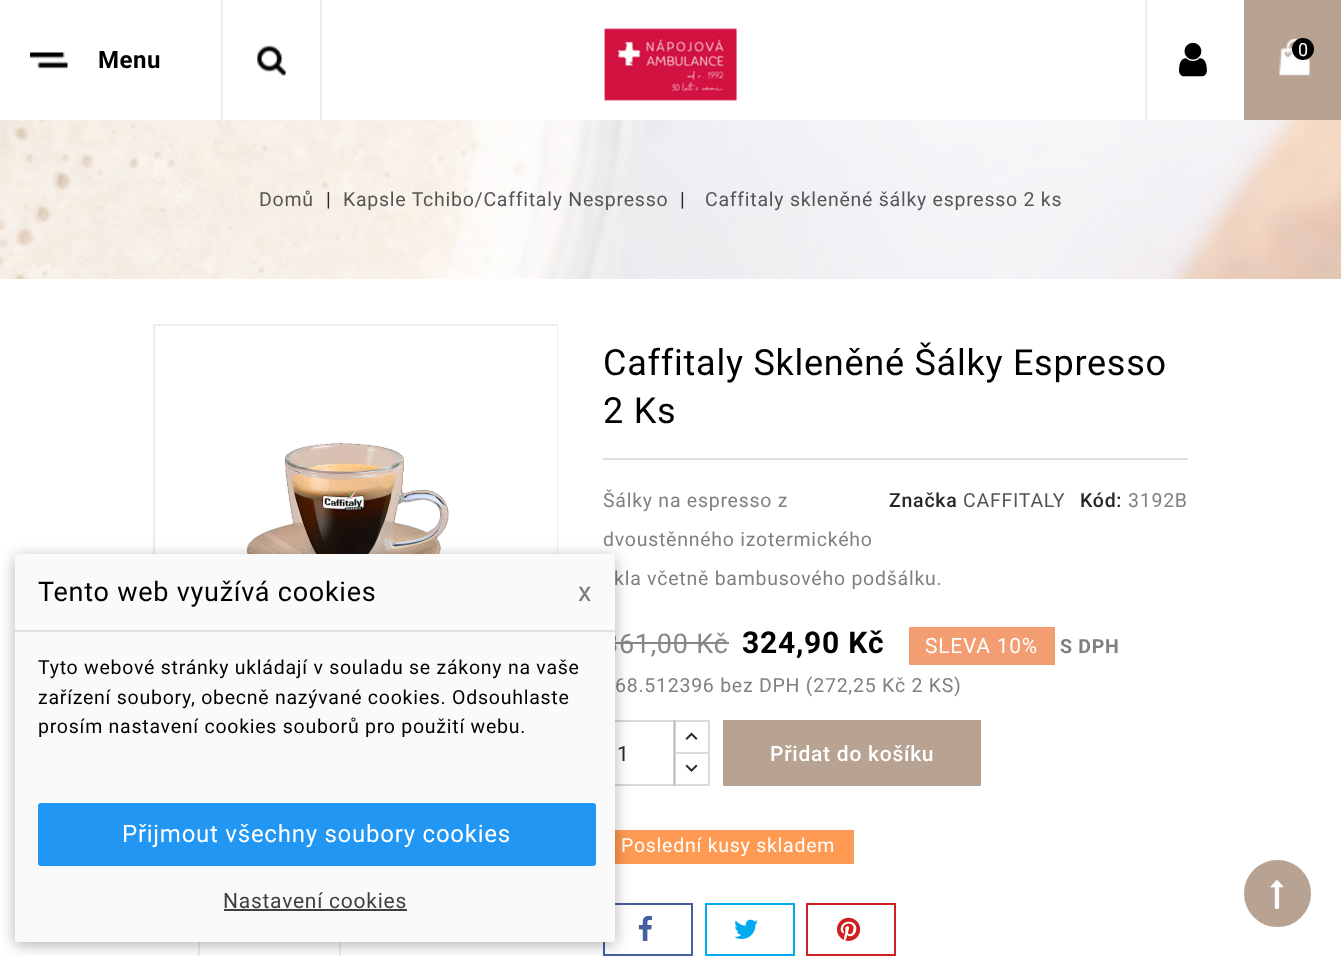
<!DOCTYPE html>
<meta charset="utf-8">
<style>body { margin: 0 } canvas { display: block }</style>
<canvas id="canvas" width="1341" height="956"></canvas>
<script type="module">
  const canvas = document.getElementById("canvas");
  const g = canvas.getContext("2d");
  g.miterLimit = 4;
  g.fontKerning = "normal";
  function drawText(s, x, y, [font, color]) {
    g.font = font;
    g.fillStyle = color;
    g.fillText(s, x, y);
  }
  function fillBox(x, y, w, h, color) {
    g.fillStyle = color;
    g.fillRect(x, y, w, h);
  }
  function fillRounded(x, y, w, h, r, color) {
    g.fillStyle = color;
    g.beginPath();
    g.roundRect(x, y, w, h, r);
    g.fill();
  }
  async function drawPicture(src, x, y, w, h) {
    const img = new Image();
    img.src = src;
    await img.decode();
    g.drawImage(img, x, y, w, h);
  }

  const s1 = ["bold 24px Roboto", "#000000"];
  const s2 = ["18px Roboto", "#FFFFFF"];
  const s3 = ["19.5px Roboto", "#555555"];
  const s4 = ["19.5px Roboto", "#262626"];
  const s5 = ["36px Roboto", "#000000"];
  const s6 = ["19.5px Roboto", "#808080"];
  const s7 = ["27px Roboto", "#878787"];
  const s8 = ["bold 30px Roboto", "#000000"];
  const s9 = ["21px Roboto", "#FFFFFF"];
  const s10 = ["bold 19.5px Roboto", "#808080"];
  const s11 = ["21px Roboto", "#262626"];
  const s12 = ["500 21px Roboto", "#FFFFFF"];
  const s13 = ["19.5px Roboto", "#FFFFFF"];
  const s14 = ["500 19.5px Roboto", "#262626"];
  const s15 = ["27px Roboto", "#000000"];
  const s16 = ["27px Roboto", "#7A7A7A"];
  const s17 = ["19.5px Roboto", "#000000"];
  const s18 = ["24px Roboto", "#FFFFFF"];
  const s19 = ["21px Roboto", "#3F3F3F"];

  fillBox(0, 0, 1341, 956, "#FFFFFF");
  await drawPicture("pic1.png", 30, 52, 38, 17);
  g.letterSpacing = "0.5px";
  drawText("Menu", 98, 68, s1);
  fillBox(320, 0, 2, 120, "#EDEDED");
  fillBox(221, 0, 2, 120, "#EDEDED");
  await drawPicture("pic2.png", 257, 45, 29, 31);
  await drawPicture("pic3.png", 604, 28, 133, 73);
  fillBox(1145, 0, 2, 120, "#EDEDED");
  await drawPicture("pic4.png", 1179, 42, 28, 35);
  fillBox(1244, 0, 97, 120, "#B8A392");
  await drawPicture("pic5.png", 1279, 38, 31, 38);
  g.fillStyle = "#000000";
  g.beginPath();
  g.arc(1303, 49, 11, 0, Math.PI * 2);
  g.fill();
  drawText("0", 1298, 56, s2);
  await drawPicture("pic6.png", 0, 120, 1341, 159);
  g.letterSpacing = "0.75px";
  drawText("Domů", 259, 206, s3);
  drawText("|", 326, 206, s4);
  drawText("Kapsle Tchibo/Caffitaly Nespresso", 343, 206, s3);
  drawText("|", 680, 206, s4);
  drawText("Caffitaly skleněné šálky espresso 2 ks", 705, 206, s3);
  g.strokeStyle = "#EDEDED";
  g.lineWidth = 2;
  g.strokeRect(154, 325, 403, 403);
  await drawPicture("pic7.png", 246, 442, 203, 112);
  fillBox(556, 326, 1, 228, "#FFFFFF");
  g.strokeRect(199, 937, 141, 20);
  fillBox(603, 458, 585, 2, "#DFDFDF");
  drawText("Caffitaly Skleněné Šálky Espresso", 603, 375, s5);
  drawText("2 Ks", 603, 423, s5);
  drawText("Šálky na espresso z", 603, 507, s6);
  drawText("dvoustěnného izotermického", 603, 546, s6);
  drawText("kla včetně bambusového podšálku.", 614, 585, s6);
  drawText("361,00 Kč", 603, 653, s7);
  fillBox(615, 642, 114, 2, "#878787");
  drawText("324,90 Kč", 742, 653, s8);
  fillBox(909, 627, 146, 38, "#F39D72");
  drawText("SLEVA 10%", 925, 653, s9);
  drawText("S DPH", 1060, 653, s10);
  drawText("68.512396 bez DPH (272,25 Kč 2 KS)", 615, 692, s6);
  g.strokeStyle = "#D9D9D9";
  g.strokeRect(675, 721, 34, 33);
  fillBox(676, 754, 32, 1, "#FFFFFF");
  g.strokeRect(675, 753, 34, 32);
  g.strokeStyle = "rgba(0, 0, 0, 0.15)";
  g.strokeRect(604, 721, 70, 64);
  g.letterSpacing = "0px";
  drawText("1", 617, 761, s11);
  await drawPicture("pic8.png", 685, 732, 13, 8);
  await drawPicture("pic9.png", 685, 764, 13, 8);
  fillBox(723, 720, 258, 66, "#B8A392");
  g.letterSpacing = "0.75px";
  drawText("Přidat do košíku", 770, 761, s12);
  fillBox(615, 830, 239, 34, "#FF9A52");
  drawText("Poslední kusy skladem", 621, 852, s13);
  g.strokeStyle = "#435F9F";
  g.strokeRect(604, 904, 88, 51);
  await drawPicture("pic10.png", 638, 915, 14, 26);
  g.strokeStyle = "#00AAF0";
  g.strokeRect(706, 904, 88, 51);
  await drawPicture("pic11.png", 734, 919, 24, 20);
  g.strokeStyle = "#CE1F21";
  g.strokeRect(807, 904, 88, 51);
  await drawPicture("pic12.png", 837, 917, 24, 24);
  drawText("Značka", 889, 507, s14);
  drawText("CAFFITALY", 963, 507, s3);
  drawText("Kód:", 1080, 507, s14);
  drawText("3192B", 1128, 507, s6);
  g.fillStyle = "#B8A392";
  g.beginPath();
  g.arc(1277.5, 893.5, 32, 0, Math.PI * 2);
  g.fill();
  g.strokeStyle = "#B8A392";
  g.lineWidth = 3;
  g.stroke();
  await drawPicture("pic13.png", 1270, 879, 14, 30);
  g.fillStyle = "rgba(0, 0, 0, 0.3)";
  g.filter = "blur(7.5px)";
  g.beginPath();
  g.roundRect(15, 557, 600, 388, 3);
  g.fill();
  g.filter = "none";
  fillRounded(15, 554, 600, 388, 3, "#FAFAFA");
  fillBox(15, 630, 600, 2, "#DEE2E6");
  drawText("Tento web využívá cookies", 38, 601, s15);
  drawText("x", 578, 601, s16);
  drawText("Tyto webové stránky ukládají v souladu se zákony na vaše", 38, 674, s17);
  drawText("zařízení soubory, obecně nazývané cookies. Odsouhlaste", 38, 704, s17);
  drawText("prosím nastavení cookies souborů pro použití webu.", 38, 733, s17);
  g.fillStyle = "#2196F3";
  g.beginPath();
  g.roundRect(39, 804, 556, 61, 2);
  g.fill();
  g.strokeStyle = "#2196F3";
  g.lineWidth = 2;
  g.stroke();
  drawText("Přijmout všechny soubory cookies", 122, 842, s18);
  drawText("Nastavení cookies", 223, 908, s19);
  fillBox(224, 909, 183, 2, "#3F3F3F");
</script>
